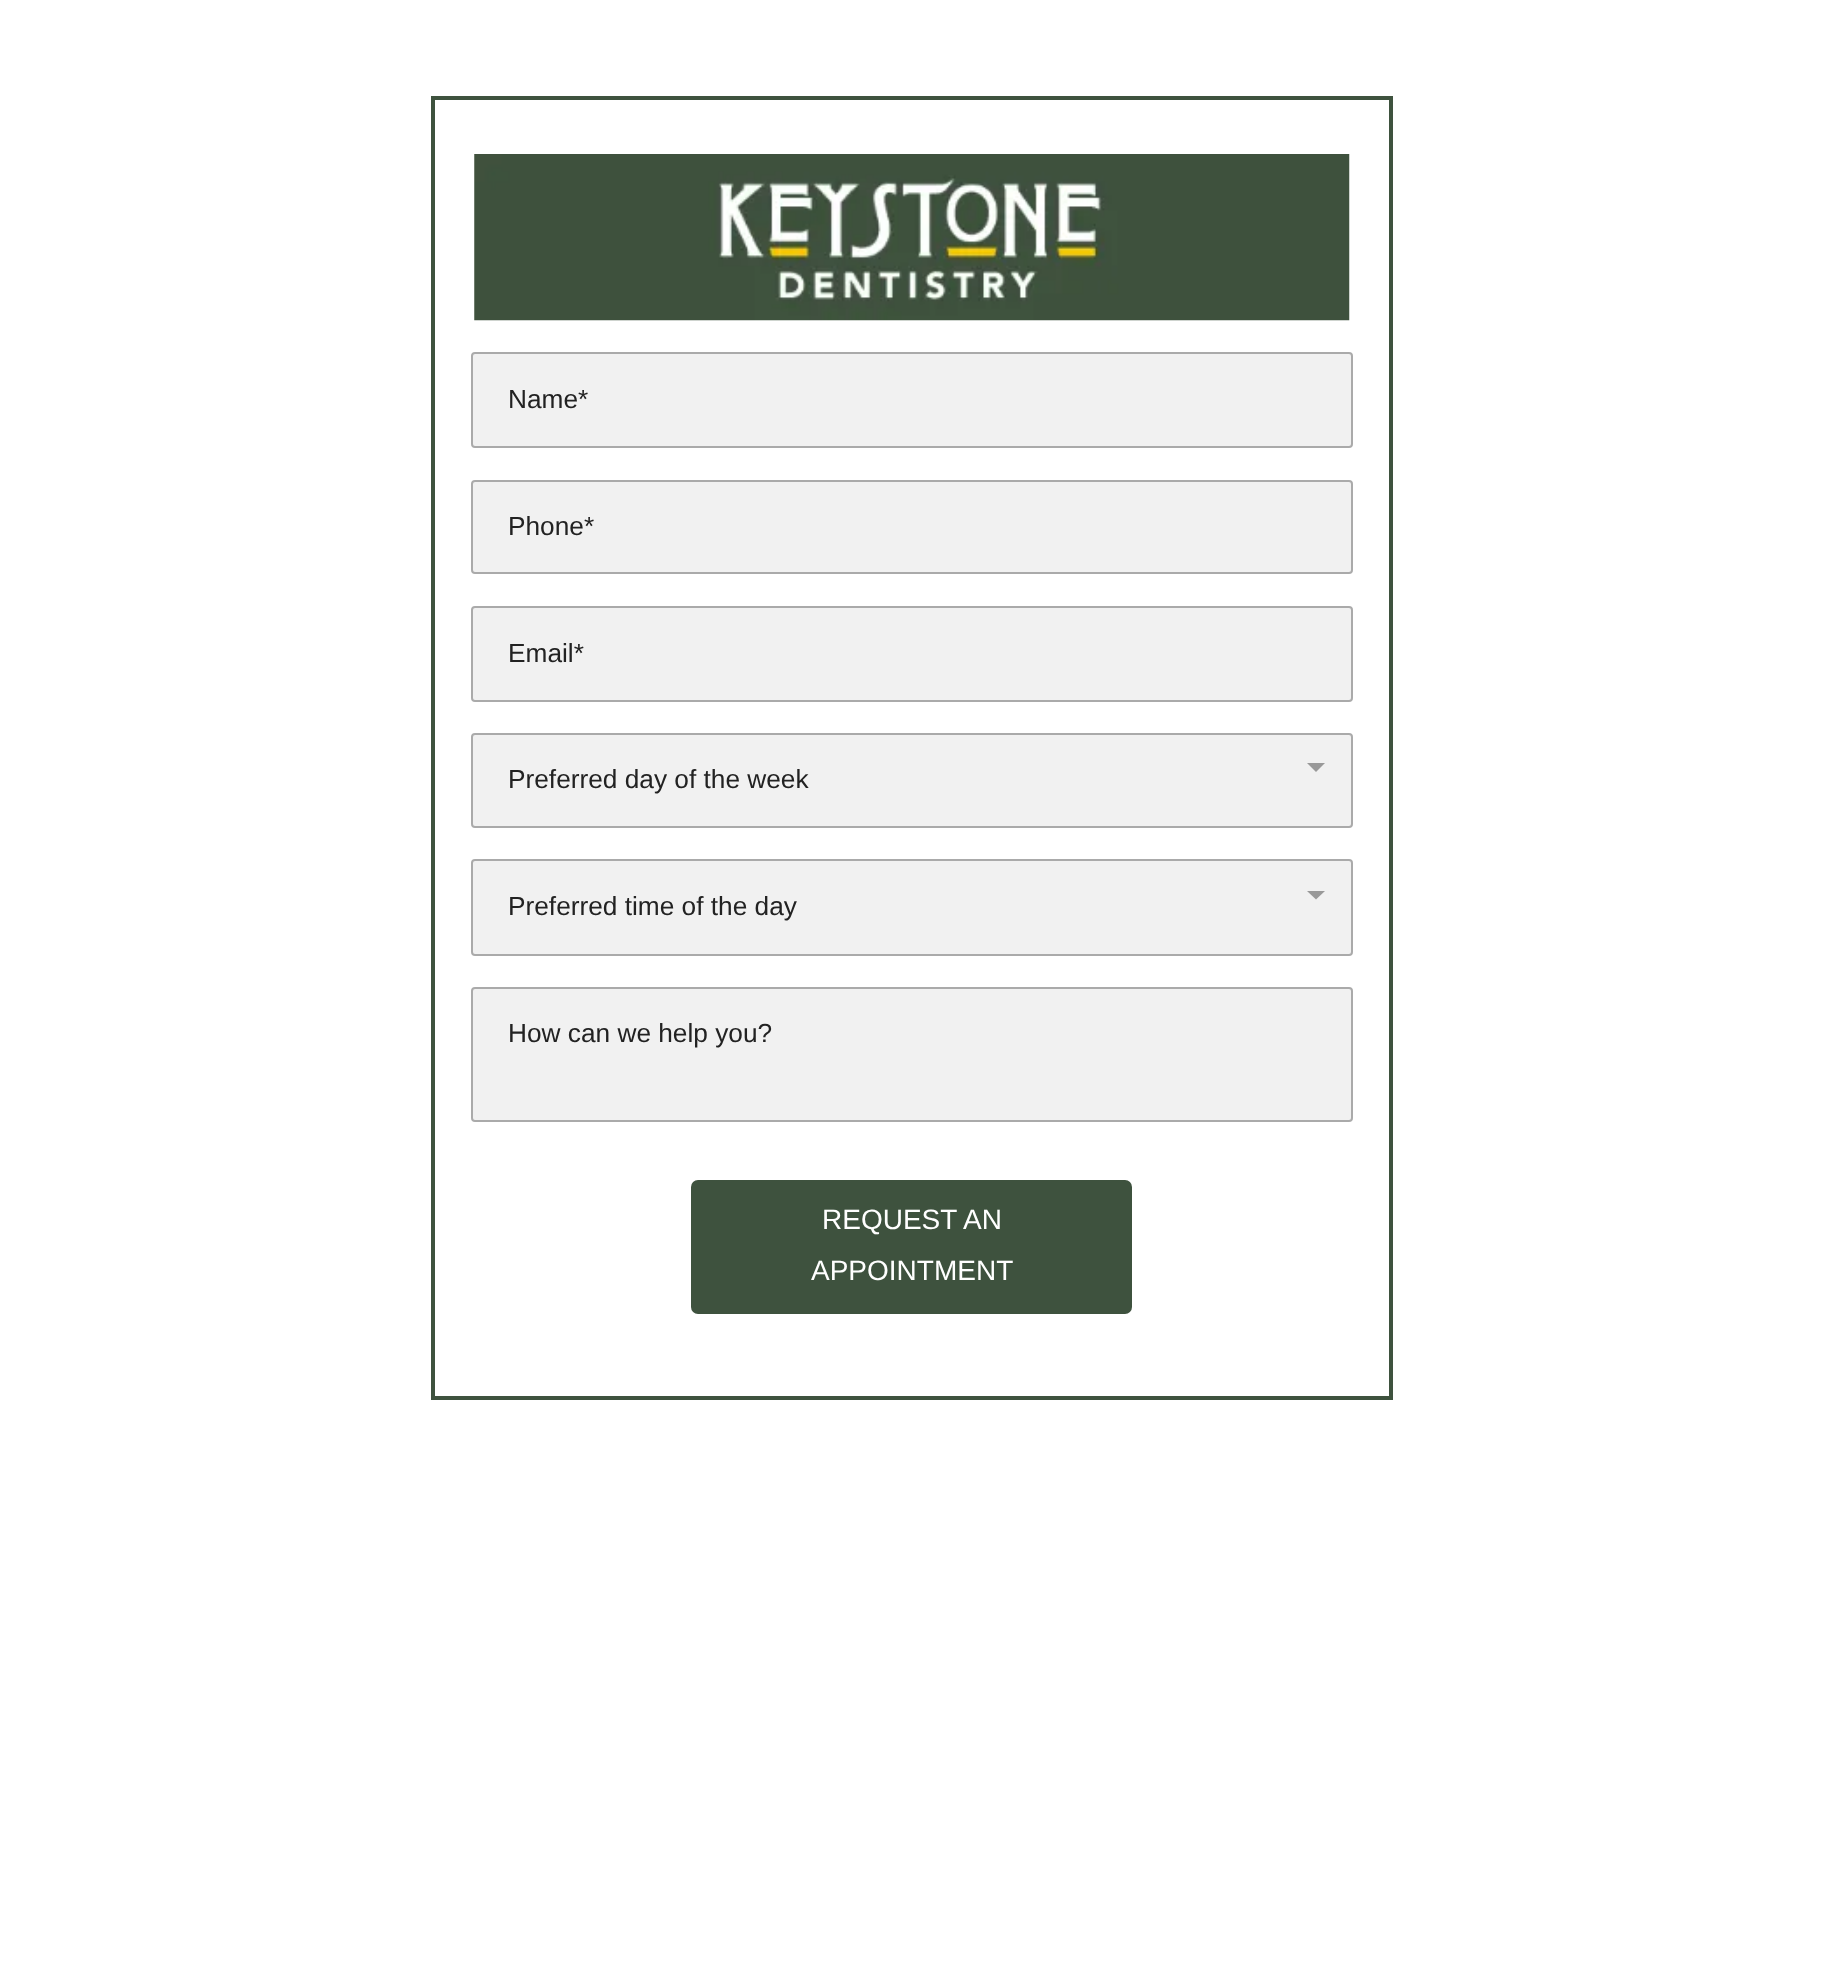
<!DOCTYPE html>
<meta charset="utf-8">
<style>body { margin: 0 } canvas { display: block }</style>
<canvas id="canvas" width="1822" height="1975"></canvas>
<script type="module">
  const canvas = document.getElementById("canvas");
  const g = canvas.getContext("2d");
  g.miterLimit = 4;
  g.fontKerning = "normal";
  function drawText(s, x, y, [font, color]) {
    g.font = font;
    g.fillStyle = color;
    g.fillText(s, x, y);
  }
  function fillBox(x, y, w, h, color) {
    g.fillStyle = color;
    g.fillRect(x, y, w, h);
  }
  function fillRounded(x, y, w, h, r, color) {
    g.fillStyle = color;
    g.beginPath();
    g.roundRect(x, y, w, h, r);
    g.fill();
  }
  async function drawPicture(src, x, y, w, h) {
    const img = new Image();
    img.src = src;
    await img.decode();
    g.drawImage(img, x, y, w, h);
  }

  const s1 = ["26.25px Liberation Sans", "#222222"];
  const s2 = ["28px Liberation Sans", "#FFFFFF"];

  fillBox(0, 0, 1822, 1975, "#FFFFFF");
  g.strokeStyle = "#3E523E";
  g.lineWidth = 4;
  g.strokeRect(433, 98, 958, 1300);
  await drawPicture("pic1.png", 474, 154, 876, 167);
  g.fillStyle = "#F1F1F1";
  g.beginPath();
  g.roundRect(472, 353, 880, 94, 3);
  g.fill();
  g.strokeStyle = "#AAAAAA";
  g.lineWidth = 2;
  g.stroke();
  drawText("Name*", 508, 408, s1);
  g.fillStyle = "#F1F1F1";
  g.beginPath();
  g.roundRect(472, 481, 880, 92, 3);
  g.fill();
  g.stroke();
  drawText("Phone*", 508, 535, s1);
  g.fillStyle = "#F1F1F1";
  g.beginPath();
  g.roundRect(472, 607, 880, 94, 3);
  g.fill();
  g.stroke();
  drawText("Email*", 508, 662, s1);
  g.fillStyle = "#F1F1F1";
  g.beginPath();
  g.roundRect(472, 734, 880, 93, 3);
  g.fill();
  g.stroke();
  g.fillStyle = "#999999";
  g.beginPath();
  g.moveTo(1307, 763);
  g.lineTo(1325, 763);
  g.lineTo(1316, 772);
  g.closePath();
  g.fill();
  drawText("Preferred day of the week", 508, 788, s1);
  g.fillStyle = "#F1F1F1";
  g.beginPath();
  g.roundRect(472, 860, 880, 95, 3);
  g.fill();
  g.stroke();
  drawText("Preferred time of the day", 508, 915, s1);
  g.fillStyle = "#999999";
  g.beginPath();
  g.moveTo(1307, 891);
  g.lineTo(1325, 891);
  g.lineTo(1316, 899.5);
  g.closePath();
  g.fill();
  g.fillStyle = "#F1F1F1";
  g.beginPath();
  g.roundRect(472, 988, 880, 133, 3);
  g.fill();
  g.stroke();
  drawText("How can we help you?", 508, 1042, s1);
  fillRounded(691, 1180, 441, 134, 7, "#3E523E");
  drawText("REQUEST AN", 822, 1229, s2);
  drawText("APPOINTMENT", 811, 1280, s2);
</script>
